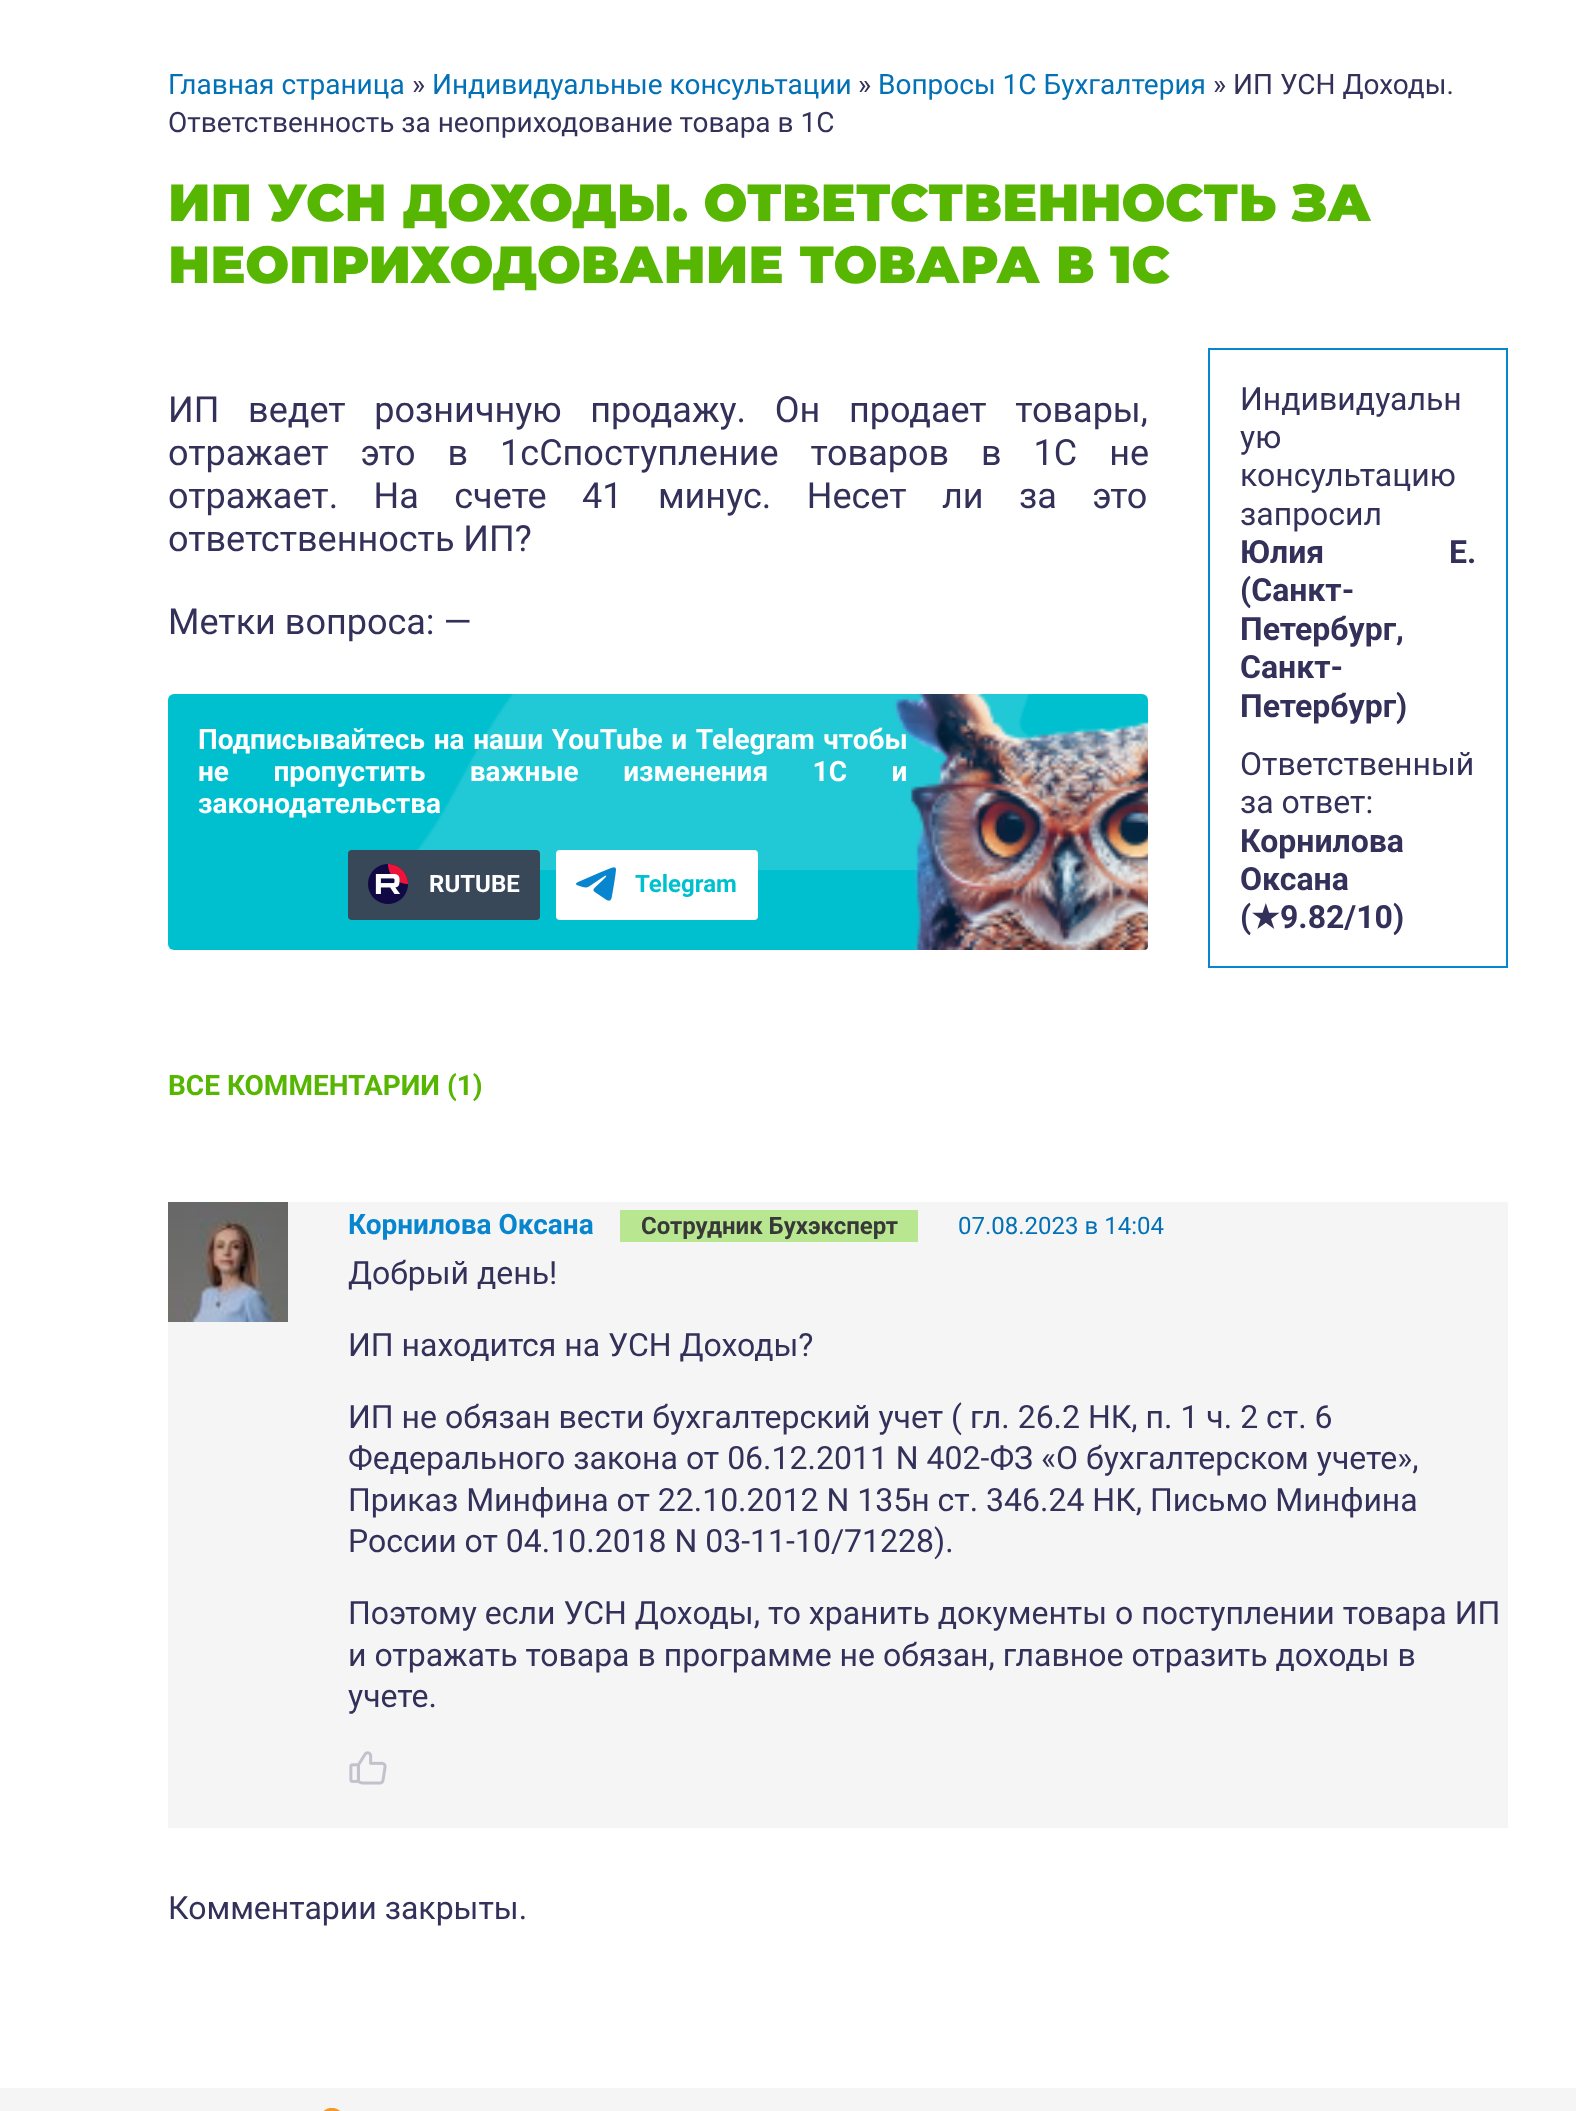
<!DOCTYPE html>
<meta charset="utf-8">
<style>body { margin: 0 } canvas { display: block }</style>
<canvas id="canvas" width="1576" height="2111"></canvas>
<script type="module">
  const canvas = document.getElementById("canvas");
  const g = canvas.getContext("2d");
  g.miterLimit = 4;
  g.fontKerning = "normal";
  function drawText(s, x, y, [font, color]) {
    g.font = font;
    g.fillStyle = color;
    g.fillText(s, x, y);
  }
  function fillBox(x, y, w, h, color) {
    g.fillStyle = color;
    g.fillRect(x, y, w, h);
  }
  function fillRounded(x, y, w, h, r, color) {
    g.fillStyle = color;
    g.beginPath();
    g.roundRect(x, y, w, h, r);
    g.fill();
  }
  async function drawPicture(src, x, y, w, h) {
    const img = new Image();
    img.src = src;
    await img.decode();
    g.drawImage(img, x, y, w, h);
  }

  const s1 = ["28px Roboto", "#0271B6"];
  const s2 = ["28px Roboto", "#33305A"];
  const s3 = ["900 52px Montserrat", "#57B602"];
  const s4 = ["36px Roboto", "#33305A"];
  const s5 = ["32px Roboto", "#33305A"];
  const s6 = ["bold 32px Roboto", "#33305A"];
  const s7 = ["bold 32px DejaVu Sans", "#33305A"];
  const s8 = ["bold 28px Roboto", "#FFFFFF"];
  const s9 = ["bold 24px Roboto", "#FFFFFF"];
  const s10 = ["bold 24px Roboto", "#00C0CF"];
  const s11 = ["bold 28px Roboto", "#57B602"];
  const s12 = ["bold 28px Roboto", "#0785CE"];
  const s13 = ["bold 24px Roboto", "#383838"];
  const s14 = ["24px Roboto", "#0271B6"];

  fillBox(0, 0, 1576, 2111, "#FFFFFF");
  drawText("Главная страница", 168, 94, s1);
  drawText("»", 412, 94, s2);
  drawText("Индивидуальные консультации", 432, 94, s1);
  drawText("»", 858, 94, s2);
  drawText("Вопросы 1С Бухгалтерия", 878, 94, s1);
  drawText("» ИП УСН Доходы.", 1213, 94, s2);
  drawText("Ответственность за неоприходование товара в 1С", 168, 132, s2);
  drawText("ИП УСН ДОХОДЫ. ОТВЕТСТВЕННОСТЬ ЗА", 168, 221, s3);
  drawText("НЕОПРИХОДОВАНИЕ ТОВАРА В 1С", 168, 283, s3);
  g.wordSpacing = "19.75px";
  drawText("ИП ведет розничную продажу. Он продает товары,", 168, 422, s4);
  g.wordSpacing = "23px";
  drawText("отражает это в 1сСпоступление товаров в 1С не", 168, 465, s4);
  g.wordSpacing = "26.5px";
  drawText("отражает. На счете 41 минус. Несет ли за это", 168, 508, s4);
  g.wordSpacing = "0px";
  drawText("ответственность ИП?", 168, 551, s4);
  g.strokeStyle = "#0785CE";
  g.lineWidth = 2;
  g.strokeRect(1209, 349, 298, 618);
  drawText("Индивидуальн", 1240, 410, s5);
  drawText("ую", 1240, 448, s5);
  drawText("консультацию", 1240, 486, s5);
  drawText("запросил", 1240, 525, s5);
  g.wordSpacing = "117px";
  drawText("Юлия Е.", 1240, 563, s6);
  g.wordSpacing = "0px";
  drawText("(Санкт-", 1240, 601, s6);
  drawText("Петербург,", 1240, 640, s6);
  drawText("Санкт-", 1240, 678, s6);
  drawText("Петербург)", 1240, 717, s6);
  drawText("Ответственный", 1240, 775, s5);
  drawText("за ответ:", 1240, 813, s5);
  drawText("Корнилова", 1240, 852, s6);
  drawText("Оксана", 1240, 890, s6);
  drawText("(", 1240, 928, s6);
  drawText("★", 1251, 928, s7);
  drawText("9.82/10)", 1280, 928, s6);
  drawText("Метки вопроса: —", 168, 634, s4);
  fillRounded(168, 694, 980, 256, 6, "#00C0CF");
  await drawPicture("pic1.png", 417, 694, 624, 176);
  g.wordSpacing = "1.75px";
  drawText("Подписывайтесь на наши YouTube и Telegram чтобы", 198, 749, s8);
  g.wordSpacing = "37.5px";
  drawText("не пропустить важные изменения 1С и", 198, 781, s8);
  g.wordSpacing = "0px";
  drawText("законодательства", 198, 813, s8);
  await drawPicture("pic2.png", 893, 694, 255, 256);
  fillRounded(348, 850, 192, 70, 4, "#384858");
  await drawPicture("pic3.png", 368, 864, 40, 40);
  drawText("RUTUBE", 429, 892, s9);
  fillRounded(556, 850, 202, 70, 4, "#FFFFFF");
  await drawPicture("pic4.png", 576, 867, 40, 34);
  drawText("Telegram", 635, 892, s10);
  drawText("ВСЕ КОММЕНТАРИИ (1)", 168, 1095, s11);
  fillBox(168, 1202, 1340, 626, "#F5F5F5");
  await drawPicture("pic5.png", 168, 1202, 120, 120);
  drawText("Корнилова Оксана", 348, 1234, s12);
  fillBox(620, 1210, 298, 32, "#B9E791");
  drawText("Сотрудник Бухэксперт", 641, 1234, s13);
  drawText("07.08.2023 в 14:04", 958, 1234, s14);
  drawText("Добрый день!", 348, 1284, s5);
  drawText("ИП находится на УСН Доходы?", 348, 1356, s5);
  drawText("ИП не обязан вести бухгалтерский учет ( гл. 26.2 НК, п. 1 ч. 2 ст. 6", 348, 1428, s5);
  drawText("Федерального закона от 06.12.2011 N 402-ФЗ «О бухгалтерском учете»,", 348, 1469, s5);
  drawText("Приказ Минфина от 22.10.2012 N 135н ст. 346.24 НК, Письмо Минфина", 348, 1511, s5);
  drawText("России от 04.10.2018 N 03-11-10/71228).", 348, 1552, s5);
  drawText("Поэтому если УСН Доходы, то хранить документы о поступлении товара ИП", 348, 1624, s5);
  drawText("и отражать товара в программе не обязан, главное отразить доходы в", 348, 1666, s5);
  drawText("учете.", 348, 1707, s5);
  await drawPicture("pic6.png", 349, 1751, 38, 34);
  drawText("Комментарии закрыты.", 168, 1919, s5);
  fillBox(0, 2088, 1576, 23, "#F5F5F5");
  await drawPicture("pic7.png", 323, 2108, 17, 3);
</script>
